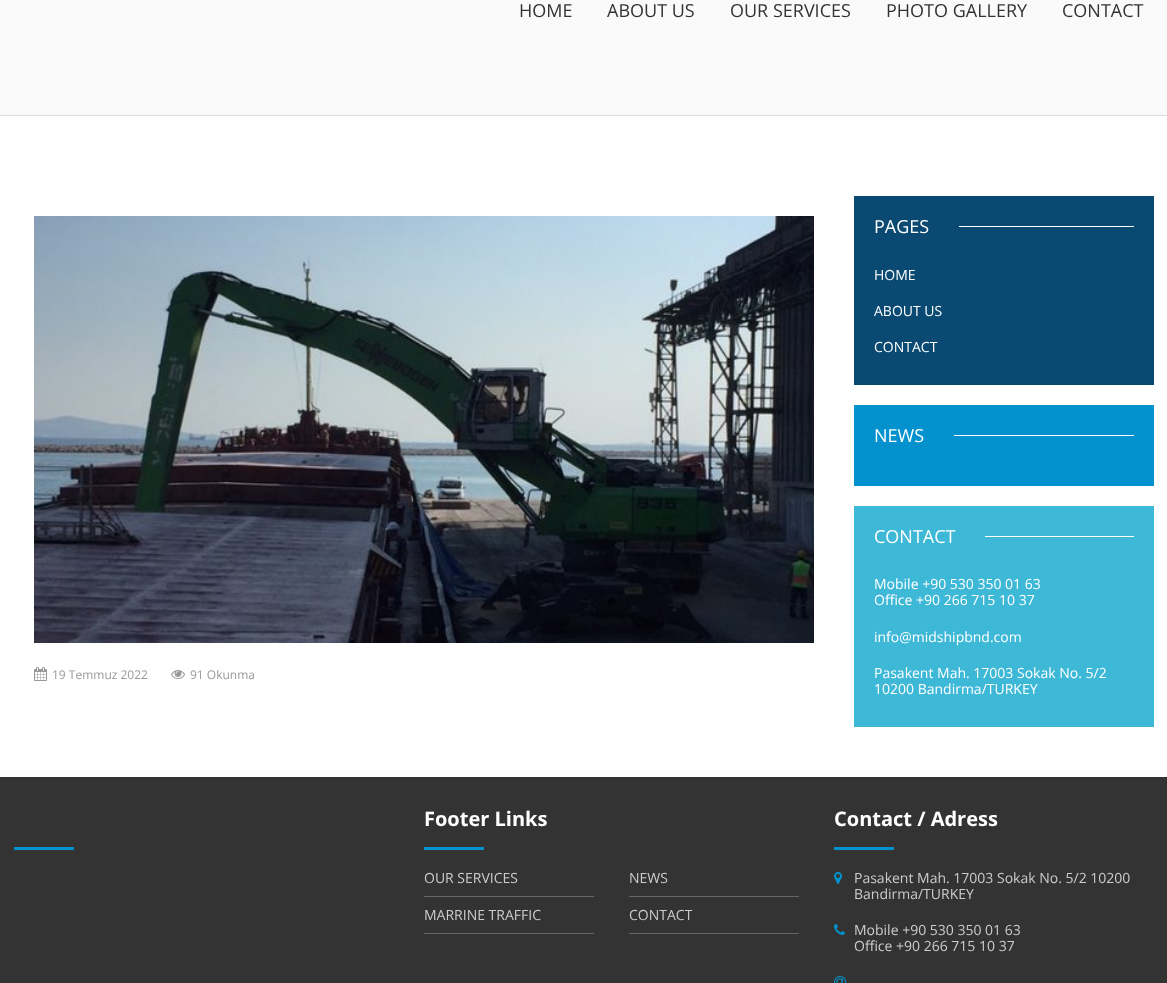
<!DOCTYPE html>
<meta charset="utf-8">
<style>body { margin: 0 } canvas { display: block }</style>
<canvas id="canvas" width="1167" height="983"></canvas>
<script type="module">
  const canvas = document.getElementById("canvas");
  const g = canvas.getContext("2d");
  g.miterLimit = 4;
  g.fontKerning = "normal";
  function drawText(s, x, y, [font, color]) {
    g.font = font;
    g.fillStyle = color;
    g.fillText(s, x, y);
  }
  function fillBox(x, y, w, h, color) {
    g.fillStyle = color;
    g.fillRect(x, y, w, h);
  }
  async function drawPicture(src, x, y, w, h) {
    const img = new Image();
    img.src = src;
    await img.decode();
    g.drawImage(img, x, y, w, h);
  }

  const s1 = ["18px Open Sans", "#333333"];
  const s2 = ["12px Open Sans", "#999999"];
  const s3 = ["18px Open Sans", "#FFFFFF"];
  const s4 = ["14px Open Sans", "#FFFFFF"];
  const s5 = ["bold 20px Open Sans", "#FFFFFF"];
  const s6 = ["14px Open Sans", "#CCCCCC"];

  fillBox(0, 0, 1167, 983, "#FFFFFF");
  fillBox(0, 0, 1167, 115, "#FAFAFA");
  fillBox(0, 115, 1167, 1, "#DCDCDC");
  drawText("HOME", 519, 17, s1);
  drawText("ABOUT US", 607, 17, s1);
  drawText("OUR SERVICES", 730, 17, s1);
  drawText("PHOTO GALLERY", 886, 17, s1);
  drawText("CONTACT", 1062, 17, s1);
  await drawPicture("pic1.png", 34, 216, 780, 427);
  await drawPicture("pic2.png", 34, 667, 13, 14);
  drawText("19 Temmuz 2022", 52, 679, s2);
  await drawPicture("pic3.png", 171, 670, 14, 9);
  drawText("91 Okunma", 190, 679, s2);
  fillBox(854, 196, 300, 189, "#0A4A72");
  drawText("PAGES", 874, 233, s3);
  fillBox(959, 226, 175, 1, "#FFFFFF");
  drawText("HOME", 874, 280, s4);
  drawText("ABOUT US", 874, 316, s4);
  drawText("CONTACT", 874, 352, s4);
  fillBox(854, 405, 300, 81, "#0392CE");
  drawText("NEWS", 874, 442, s3);
  fillBox(954, 435, 180, 1, "#FFFFFF");
  fillBox(854, 506, 300, 221, "#3EB8D7");
  drawText("CONTACT", 874, 543, s3);
  fillBox(985, 536, 149, 1, "#FFFFFF");
  drawText("Mobile +90 530 350 01 63", 874, 589, s4);
  drawText("Office +90 266 715 10 37", 874, 605, s4);
  drawText("info@midshipbnd.com", 874, 642, s4);
  drawText("Pasakent Mah. 17003 Sokak No. 5/2", 874, 678, s4);
  drawText("10200 Bandirma/TURKEY", 874, 694, s4);
  fillBox(0, 777, 1167, 206, "#333333");
  fillBox(14, 847, 60, 3, "#0392CE");
  drawText("Footer Links", 424, 826, s5);
  fillBox(424, 847, 60, 3, "#0392CE");
  fillBox(424, 896, 170, 1, "#666666");
  drawText("OUR SERVICES", 424, 883, s6);
  fillBox(629, 896, 170, 1, "#666666");
  drawText("NEWS", 629, 883, s6);
  fillBox(424, 933, 170, 1, "#666666");
  drawText("MARRINE TRAFFIC", 424, 920, s6);
  fillBox(629, 933, 170, 1, "#666666");
  drawText("CONTACT", 629, 920, s6);
  drawText("Contact / Adress", 834, 826, s5);
  fillBox(834, 847, 60, 3, "#0392CE");
  await drawPicture("pic4.png", 834, 872, 8, 12);
  drawText("Pasakent Mah. 17003 Sokak No. 5/2 10200", 854, 883, s6);
  drawText("Bandirma/TURKEY", 854, 899, s6);
  await drawPicture("pic5.png", 834, 924, 11, 11);
  drawText("Mobile +90 530 350 01 63", 854, 935, s6);
  drawText("Office +90 266 715 10 37", 854, 951, s6);
  await drawPicture("pic6.png", 834, 976, 12, 7);
</script>
